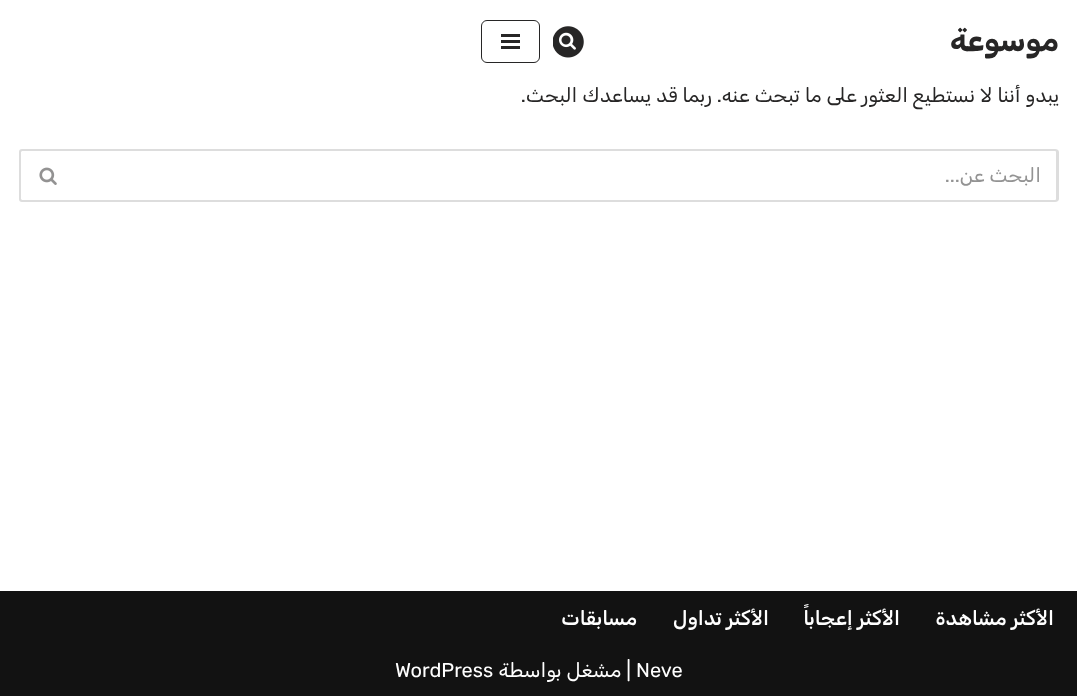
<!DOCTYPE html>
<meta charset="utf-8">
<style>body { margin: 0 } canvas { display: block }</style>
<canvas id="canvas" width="1077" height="696"></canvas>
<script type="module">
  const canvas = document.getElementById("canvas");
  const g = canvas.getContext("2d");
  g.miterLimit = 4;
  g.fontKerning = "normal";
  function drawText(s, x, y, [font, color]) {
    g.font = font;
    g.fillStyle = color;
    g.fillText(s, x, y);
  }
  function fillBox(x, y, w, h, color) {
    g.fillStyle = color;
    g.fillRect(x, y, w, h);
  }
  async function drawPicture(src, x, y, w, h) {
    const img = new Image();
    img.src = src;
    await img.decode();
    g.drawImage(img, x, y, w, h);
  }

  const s1 = ["bold 30px Rubik", "#272626"];
  const s2 = ["20px Rubik", "#272626"];
  const s3 = ["20px Rubik", "#939393"];
  const s4 = ["500 20px Rubik", "#FFFFFF"];
  const s5 = ["20px Rubik", "#FFFFFF"];

  fillBox(0, 0, 1077, 696, "#FFFFFF");
  g.direction = "rtl";
  drawText("موسوعة", 1059, 51, s1);
  await drawPicture("pic1.png", 553, 26, 31, 32);
  g.beginPath();
  g.roundRect(481.5, 20.5, 58, 42, 5.5);
  g.strokeStyle = "#272626";
  g.stroke();
  fillBox(501, 34, 19, 3, "#272626");
  fillBox(501, 40, 19, 3, "#272626");
  fillBox(501, 46, 19, 3, "#272626");
  drawText("يبدو أننا لا نستطيع العثور على ما تبحث عنه. ربما قد يساعدك البحث.", 1059, 102, s2);
  g.fillStyle = "#DDDDDD";
  g.beginPath();
  g.moveTo(75, 149);
  g.lineTo(1055, 149);
  g.bezierCurveTo(1057, 149, 1059, 150, 1059, 152);
  g.lineTo(1059, 199);
  g.bezierCurveTo(1059, 201, 1057, 202, 1055, 202);
  g.lineTo(75, 202);
  g.closePath();
  g.moveTo(75, 151);
  g.lineTo(1055, 151);
  g.bezierCurveTo(1056, 151, 1056, 152, 1056, 152);
  g.lineTo(1056, 199);
  g.bezierCurveTo(1056, 199, 1056, 200, 1055, 200);
  g.lineTo(75, 200);
  g.closePath();
  g.fill("evenodd");
  drawText("البحث عن...", 1041, 182, s3);
  g.fillStyle = "#DDDDDD";
  g.beginPath();
  g.moveTo(22, 149);
  g.lineTo(75, 149);
  g.lineTo(75, 202);
  g.lineTo(22, 202);
  g.bezierCurveTo(20, 202, 19, 201, 19, 199);
  g.lineTo(19, 152);
  g.bezierCurveTo(19, 150, 20, 149, 22, 149);
  g.closePath();
  g.moveTo(22, 151);
  g.lineTo(75, 151);
  g.lineTo(75, 200);
  g.lineTo(22, 200);
  g.bezierCurveTo(22, 200, 21, 199, 21, 199);
  g.lineTo(21, 152);
  g.bezierCurveTo(21, 152, 22, 151, 22, 151);
  g.closePath();
  g.fill("evenodd");
  await drawPicture("pic2.png", 39, 167, 18, 18);
  fillBox(0, 591, 1077, 105, "#121212");
  drawText("الأكثر مشاهدة", 1054, 625, s4);
  drawText("الأكثر إعجاباً", 900, 625, s4);
  drawText("الأكثر تداول", 769, 625, s4);
  drawText("مسابقات", 637, 625, s4);
  g.direction = "ltr";
  drawText("Neve", 636, 677, s5);
  g.direction = "rtl";
  drawText("| مشغل بواسطة", 631, 677, s5);
  g.direction = "ltr";
  drawText("WordPress", 395, 677, s5);
</script>
